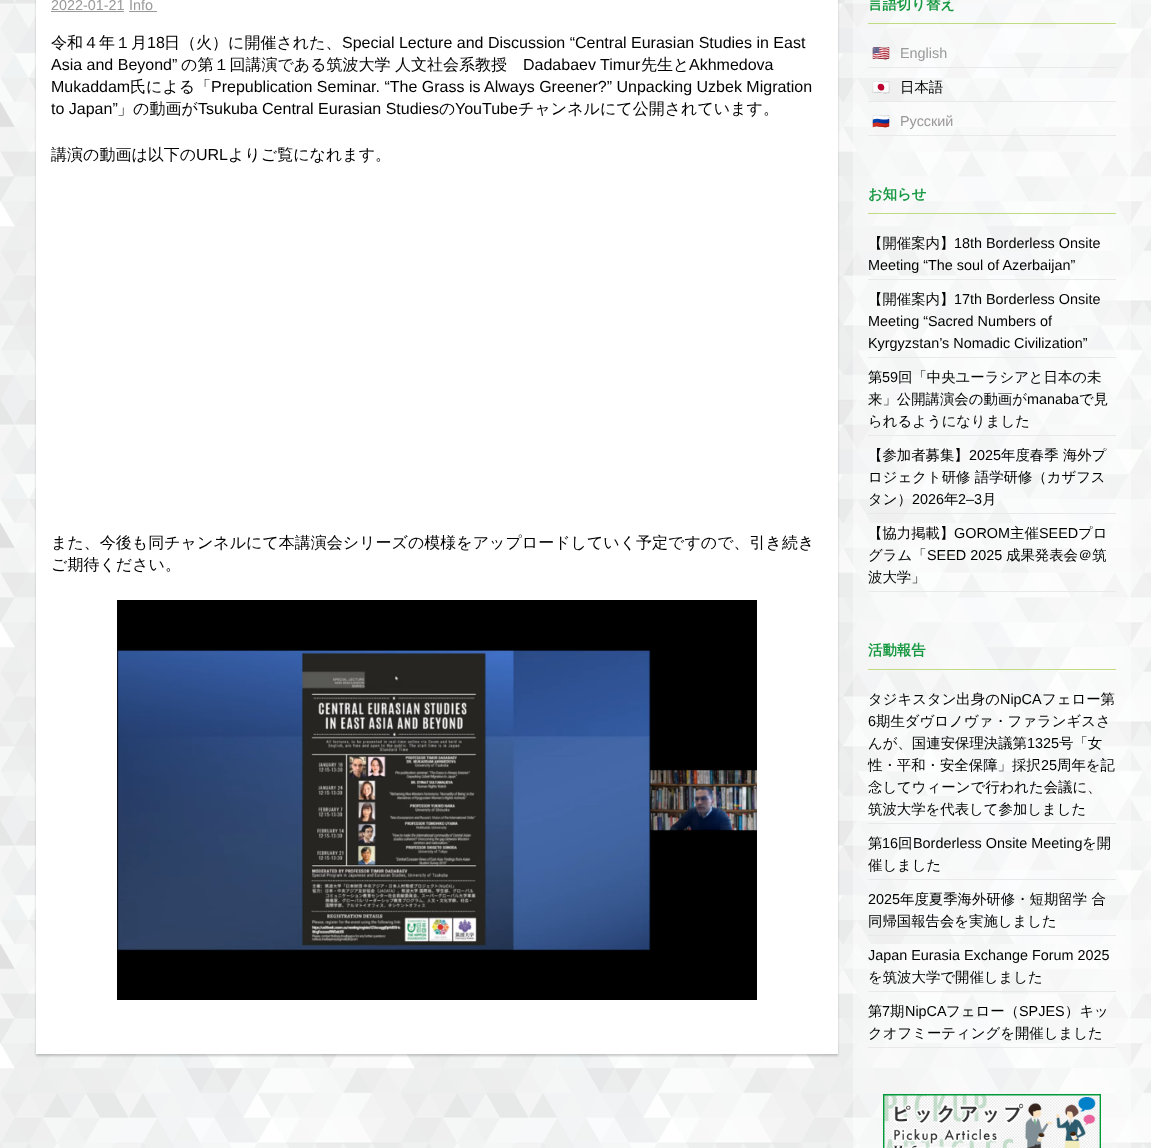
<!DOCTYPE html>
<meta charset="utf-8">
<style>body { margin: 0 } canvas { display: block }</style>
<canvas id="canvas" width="1151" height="1148"></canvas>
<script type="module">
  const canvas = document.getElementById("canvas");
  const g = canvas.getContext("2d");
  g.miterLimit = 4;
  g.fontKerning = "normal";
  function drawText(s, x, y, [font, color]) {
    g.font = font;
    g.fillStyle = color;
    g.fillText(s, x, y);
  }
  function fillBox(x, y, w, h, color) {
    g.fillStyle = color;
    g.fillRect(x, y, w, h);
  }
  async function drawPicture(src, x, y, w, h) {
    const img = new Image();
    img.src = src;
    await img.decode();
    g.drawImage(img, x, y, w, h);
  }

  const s1 = ["14.4px Liberation Sans", "#999999"];
  const s2 = ["500 16px WenQuanYi Zen Hei", "#000000"];
  const s3 = ["16px Liberation Sans", "#000000"];
  const s4 = ["bold 14.4px WenQuanYi Zen Hei", "#15983F"];
  const s5 = ["14.4px Noto Color Emoji", "#999999"];
  const s6 = ["500 14.4px WenQuanYi Zen Hei", "#000000"];
  const s7 = ["14.4px Liberation Sans", "#000000"];

  fillBox(0, 0, 1151, 1148, "#FFFFFF");
  await drawPicture("pic1.png", 0, 0, 1151, 1148);
  g.fillStyle = "rgba(0, 0, 0, 0.2)";
  g.filter = "blur(1px)";
  g.beginPath();
  g.rect(36, -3, 802, 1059);
  g.fill();
  g.filter = "none";
  fillBox(36, 0, 802, 1054, "#FFFFFF");
  drawText("2022-01-21", 51, 10, s1);
  fillBox(51, 11, 73, 1, "#999999");
  drawText("Info", 129, 10, s1);
  fillBox(129, 11, 28, 1, "#999999");
  drawText("令和４年１月", 51, 48, s2);
  drawText("18", 147, 48, s3);
  drawText("日（火）に開催された、", 164, 48, s2);
  drawText("Special Lecture and Discussion “Central Eurasian Studies in East", 342, 48, s3);
  drawText("Asia and Beyond”", 51, 70, s3);
  drawText("の第１回講演である筑波大学", 181, 70, s2);
  drawText("人文社会系教授", 395, 70, s2);
  drawText("Dadabaev Timur", 523, 70, s3);
  drawText("先生と", 641, 70, s2);
  drawText("Akhmedova", 689, 70, s3);
  drawText("Mukaddam", 51, 92, s3);
  drawText("氏による「", 130, 92, s2);
  drawText("Prepublication Seminar. “The Grass is Always Greener?” Unpacking Uzbek Migration", 211, 92, s3);
  drawText("to Japan”", 51, 114, s3);
  drawText("」の動画が", 117, 114, s2);
  drawText("Tsukuba Central Eurasian Studies", 198, 114, s3);
  drawText("の", 439, 114, s2);
  drawText("YouTube", 455, 114, s3);
  drawText("チャンネルにて公開されています。", 518, 114, s2);
  drawText("講演の動画は以下の", 51, 160, s2);
  drawText("URL", 196, 160, s3);
  drawText("よりご覧になれます。", 228, 160, s2);
  drawText("また、今後も同チャンネルにて本講演会シリーズの模様をアップロードしていく予定ですので、引き続き", 51, 548, s2);
  drawText("ご期待ください。", 51, 570, s2);
  await drawPicture("pic2.png", 117, 600, 640, 400);
  fillBox(853, 0, 278, 1148, "rgba(255, 255, 255, 0.4)");
  fillBox(868, 23, 248, 1, "#C1DB81");
  drawText("言語切り替え", 868, 9, s4);
  fillBox(868, 67, 248, 1, "#E9E9E9");
  drawText("🇺🇸", 872, 58, s5);
  drawText("English", 900, 58, s1);
  fillBox(868, 101, 248, 1, "#E9E9E9");
  drawText("🇯🇵", 872, 92, s5);
  drawText("日本語", 900, 92, s6);
  fillBox(868, 135, 248, 1, "#E9E9E9");
  drawText("🇷🇺", 872, 126, s5);
  drawText("Русский", 900, 126, s1);
  fillBox(868, 213, 248, 1, "#C1DB81");
  drawText("お知らせ", 868, 199, s4);
  fillBox(868, 279, 248, 1, "#E9E9E9");
  drawText("【開催案内】", 868, 248, s6);
  drawText("18th Borderless Onsite", 954, 248, s7);
  drawText("Meeting “The soul of Azerbaijan”", 868, 270, s7);
  fillBox(868, 357, 248, 1, "#E9E9E9");
  drawText("【開催案内】", 868, 304, s6);
  drawText("17th Borderless Onsite", 954, 304, s7);
  drawText("Meeting “Sacred Numbers of", 868, 326, s7);
  drawText("Kyrgyzstan’s Nomadic Civilization”", 868, 348, s7);
  fillBox(868, 435, 248, 1, "#E9E9E9");
  drawText("第", 868, 382, s6);
  drawText("59", 882, 382, s7);
  drawText("回「中央ユーラシアと日本の未", 898, 382, s6);
  drawText("来」公開講演会の動画が", 868, 404, s6);
  drawText("manaba", 1027, 404, s7);
  drawText("で見", 1079, 404, s6);
  drawText("られるようになりました", 868, 426, s6);
  fillBox(868, 513, 248, 1, "#E9E9E9");
  drawText("【参加者募集】", 868, 460, s6);
  drawText("2025", 969, 460, s7);
  drawText("年度春季 海外プ", 1001, 460, s6);
  drawText("ロジェクト研修 語学研修（カザフス", 868, 482, s6);
  drawText("タン）", 868, 504, s6);
  drawText("2026", 912, 504, s7);
  drawText("年", 944, 504, s6);
  drawText("2–3", 958, 504, s7);
  drawText("月", 982, 504, s6);
  fillBox(868, 591, 248, 1, "#E9E9E9");
  drawText("【協力掲載】", 868, 538, s6);
  drawText("GOROM", 954, 538, s7);
  drawText("主催", 1010, 538, s6);
  drawText("SEED", 1039, 538, s7);
  drawText("プロ", 1078, 538, s6);
  drawText("グラム「", 868, 560, s6);
  drawText("SEED 2025", 927, 560, s7);
  drawText("成果発表会＠筑", 1006, 560, s6);
  drawText("波大学」", 868, 582, s6);
  fillBox(868, 669, 248, 1, "#C1DB81");
  drawText("活動報告", 868, 655, s4);
  fillBox(868, 823, 248, 1, "#E9E9E9");
  drawText("タジキスタン出身の", 868, 704, s6);
  drawText("NipCA", 1000, 704, s7);
  drawText("フェロー第", 1042, 704, s6);
  drawText("6", 868, 726, s7);
  drawText("期生ダヴロノヴァ・ファランギスさ", 876, 726, s6);
  drawText("んが、国連安保理決議第", 868, 748, s6);
  drawText("1325", 1027, 748, s7);
  drawText("号「女", 1059, 748, s6);
  drawText("性・平和・安全保障」採択", 868, 770, s6);
  drawText("25", 1041, 770, s7);
  drawText("周年を記", 1057, 770, s6);
  drawText("念してウィーンで行われた会議に、", 868, 792, s6);
  drawText("筑波大学を代表して参加しました", 868, 814, s6);
  fillBox(868, 879, 248, 1, "#E9E9E9");
  drawText("第", 868, 848, s6);
  drawText("16", 882, 848, s7);
  drawText("回", 898, 848, s6);
  drawText("Borderless Onsite Meeting", 913, 848, s7);
  drawText("を開", 1082, 848, s6);
  drawText("催しました", 868, 870, s6);
  fillBox(868, 935, 248, 1, "#E9E9E9");
  drawText("2025", 868, 904, s7);
  drawText("年度夏季海外研修・短期留学 合", 900, 904, s6);
  drawText("同帰国報告会を実施しました", 868, 926, s6);
  fillBox(868, 991, 248, 1, "#E9E9E9");
  drawText("Japan Eurasia Exchange Forum 2025", 868, 960, s7);
  drawText("を筑波大学で開催しました", 868, 982, s6);
  fillBox(868, 1047, 248, 1, "#E9E9E9");
  drawText("第", 868, 1016, s6);
  drawText("7", 882, 1016, s7);
  drawText("期", 890, 1016, s6);
  drawText("NipCA", 905, 1016, s7);
  drawText("フェロー（", 946, 1016, s6);
  drawText("SPJES", 1019, 1016, s7);
  drawText("）キッ", 1065, 1016, s6);
  drawText("クオフミーティングを開催しました", 868, 1038, s6);
  await drawPicture("pic3.png", 883, 1094, 218, 54);
</script>
